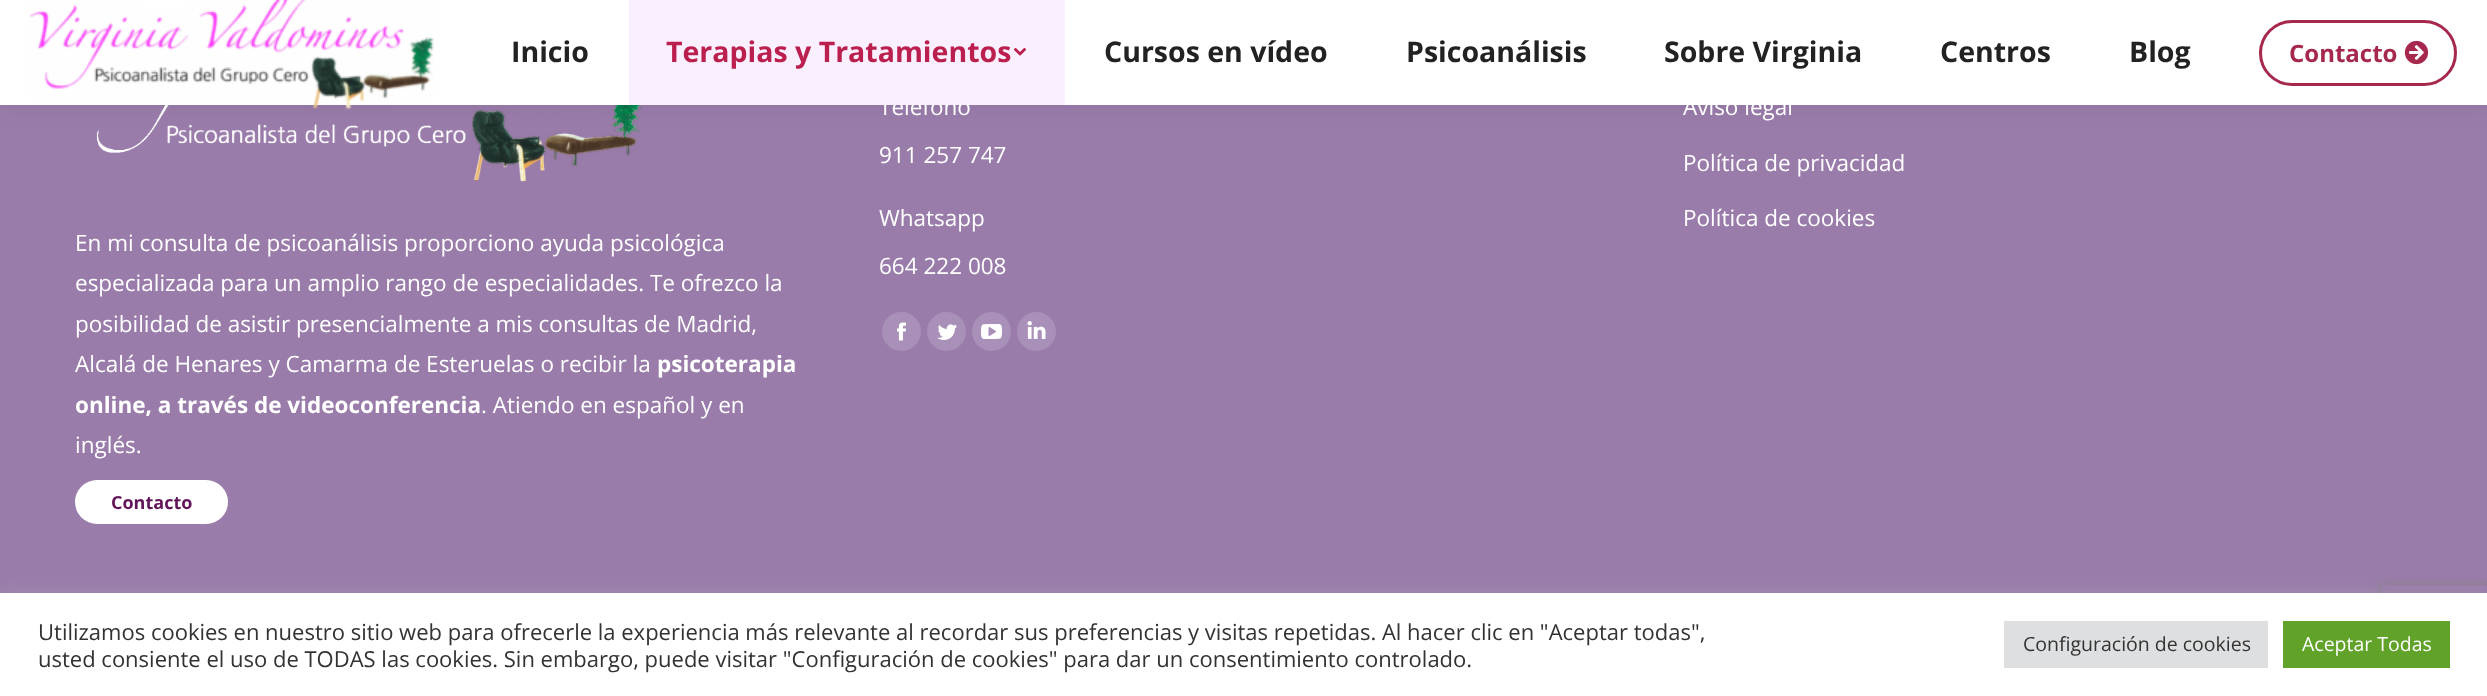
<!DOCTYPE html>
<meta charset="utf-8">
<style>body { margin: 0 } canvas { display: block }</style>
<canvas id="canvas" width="2487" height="696"></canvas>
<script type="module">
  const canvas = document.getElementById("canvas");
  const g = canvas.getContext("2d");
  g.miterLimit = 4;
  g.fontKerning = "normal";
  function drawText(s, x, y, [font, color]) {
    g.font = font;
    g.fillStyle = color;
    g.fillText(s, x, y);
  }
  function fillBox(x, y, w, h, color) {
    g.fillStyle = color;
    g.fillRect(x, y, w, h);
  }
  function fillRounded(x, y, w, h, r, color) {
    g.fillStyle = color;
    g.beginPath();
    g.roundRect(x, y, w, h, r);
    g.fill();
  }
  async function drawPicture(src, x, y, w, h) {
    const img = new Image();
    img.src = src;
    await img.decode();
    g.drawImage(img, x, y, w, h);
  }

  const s1 = ["bold 28.5px Open Sans", "#222222"];
  const s2 = ["22.5px Open Sans", "#FFFFFF"];
  const s3 = ["bold 28.5px Open Sans", "#BB1F4E"];
  const s4 = ["bold 24px Open Sans", "#A6284D"];
  const s5 = ["bold 22.5px Open Sans", "#FFFFFF"];
  const s6 = ["bold 18px Open Sans", "#621559"];
  const s7 = ["22px Open Sans", "#333333"];
  const s8 = ["19.5px Open Sans", "#333333"];
  const s9 = ["19.5px Open Sans", "#FFFFFF"];

  fillBox(0, 0, 2487, 696, "#9A7CAB");
  await drawPicture("pic8.png", 96, 105, 546, 77);
  g.fillStyle = "rgba(0, 0, 0, 0.07)";
  g.filter = "blur(11px)";
  g.beginPath();
  g.rect(-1, -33, 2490, 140);
  g.fill();
  g.filter = "none";
  fillBox(0, 0, 2487, 105, "#FFFFFF");
  await drawPicture("pic1.png", 30, 0, 404, 110);
  drawText("Inicio", 511, 62, s1);
  drawText("Teléfono", 879, 115, s2);
  fillBox(629, 0, 436, 105, "#FAEFFF");
  drawText("Terapias y Tratamientos", 666, 62, s3);
  await drawPicture("pic2.png", 1014, 48, 12, 8);
  drawText("Cursos en vídeo", 1104, 62, s1);
  drawText("Psicoanálisis", 1406, 62, s1);
  drawText("Sobre Virginia", 1664, 62, s1);
  drawText("Centros", 1940, 62, s1);
  drawText("Blog", 2129, 62, s1);
  g.beginPath();
  g.roundRect(2260.5, 21.5, 195, 63, 31.5);
  g.strokeStyle = "#A6284D";
  g.lineWidth = 3;
  g.stroke();
  drawText("Contacto", 2289, 62, s4);
  await drawPicture("pic3.png", 2404, 40, 25, 25);
  drawText("911 257 747", 879, 163, s2);
  drawText("Whatsapp", 879, 226, s2);
  drawText("664 222 008", 879, 274, s2);
  g.fillStyle = "#A990B8";
  g.beginPath();
  g.arc(901.5, 331.5, 19.5, 0, Math.PI * 2);
  g.fill();
  await drawPicture("pic4.png", 897, 322, 9, 19);
  g.beginPath();
  g.arc(946.5, 331.5, 19.5, 0, Math.PI * 2);
  g.fill();
  await drawPicture("pic5.png", 937, 324, 20, 16);
  g.beginPath();
  g.arc(991.5, 331.5, 19.5, 0, Math.PI * 2);
  g.fill();
  await drawPicture("pic6.png", 981, 324, 21, 15);
  g.beginPath();
  g.arc(1036.5, 331.5, 19.5, 0, Math.PI * 2);
  g.fill();
  await drawPicture("pic7.png", 1027, 321, 19, 18);
  drawText("Aviso legal", 1683, 115, s2);
  drawText("Política de privacidad", 1683, 171, s2);
  drawText("Política de cookies", 1683, 226, s2);
  drawText("En mi consulta de psicoanálisis proporciono ayuda psicológica", 75, 251, s2);
  drawText("especializada para un amplio rango de especialidades. Te ofrezco la", 75, 291, s2);
  drawText("posibilidad de asistir presencialmente a mis consultas de Madrid,", 75, 332, s2);
  drawText("Alcalá de Henares y Camarma de Esteruelas o recibir la", 75, 372, s2);
  drawText("psicoterapia", 657, 372, s5);
  drawText("online, a través de videoconferencia", 75, 413, s5);
  drawText(". Atiendo en español y en", 481, 413, s2);
  drawText("inglés.", 75, 453, s2);
  fillRounded(75, 480, 153, 44, 22, "#FFFFFF");
  drawText("Contacto", 111, 509, s6);
  g.save();
  g.beginPath();
  g.moveTo(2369, 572);
  g.lineTo(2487, 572);
  g.lineTo(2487, 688);
  g.lineTo(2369, 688);
  g.closePath();
  g.moveTo(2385, 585);
  g.lineTo(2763, 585);
  g.bezierCurveTo(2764.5, 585, 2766, 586.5, 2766, 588);
  g.lineTo(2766, 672);
  g.bezierCurveTo(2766, 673.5, 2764.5, 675, 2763, 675);
  g.lineTo(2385, 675);
  g.bezierCurveTo(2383.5, 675, 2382, 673.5, 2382, 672);
  g.lineTo(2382, 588);
  g.bezierCurveTo(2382, 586.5, 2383.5, 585, 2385, 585);
  g.closePath();
  g.clip("evenodd");
  g.fillStyle = "#808080";
  g.filter = "blur(4px)";
  g.beginPath();
  g.roundRect(2382, 585, 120, 90, 3);
  g.fill();
  g.filter = "none";
  g.restore();
  g.fillStyle = "rgba(172, 171, 171, 0.3)";
  g.filter = "blur(7.5px)";
  g.beginPath();
  g.rect(0, 591, 2487, 104);
  g.fill();
  g.filter = "none";
  fillBox(0, 593, 2487, 103, "#FFFFFF");
  drawText("Utilizamos cookies en nuestro sitio web para ofrecerle la experiencia más relevante al recordar sus preferencias y visitas repetidas. Al hacer clic en \"Aceptar todas\",", 38, 640, s7);
  drawText("usted consiente el uso de TODAS las cookies. Sin embargo, puede visitar \"Configuración de cookies\" para dar un consentimiento controlado.", 38, 667, s7);
  fillBox(2004, 621, 264, 47, "#DEDFE0");
  drawText("Configuración de cookies", 2023, 651, s8);
  fillBox(2283, 621, 167, 47, "#61A229");
  drawText("Aceptar Todas", 2302, 651, s9);
</script>
